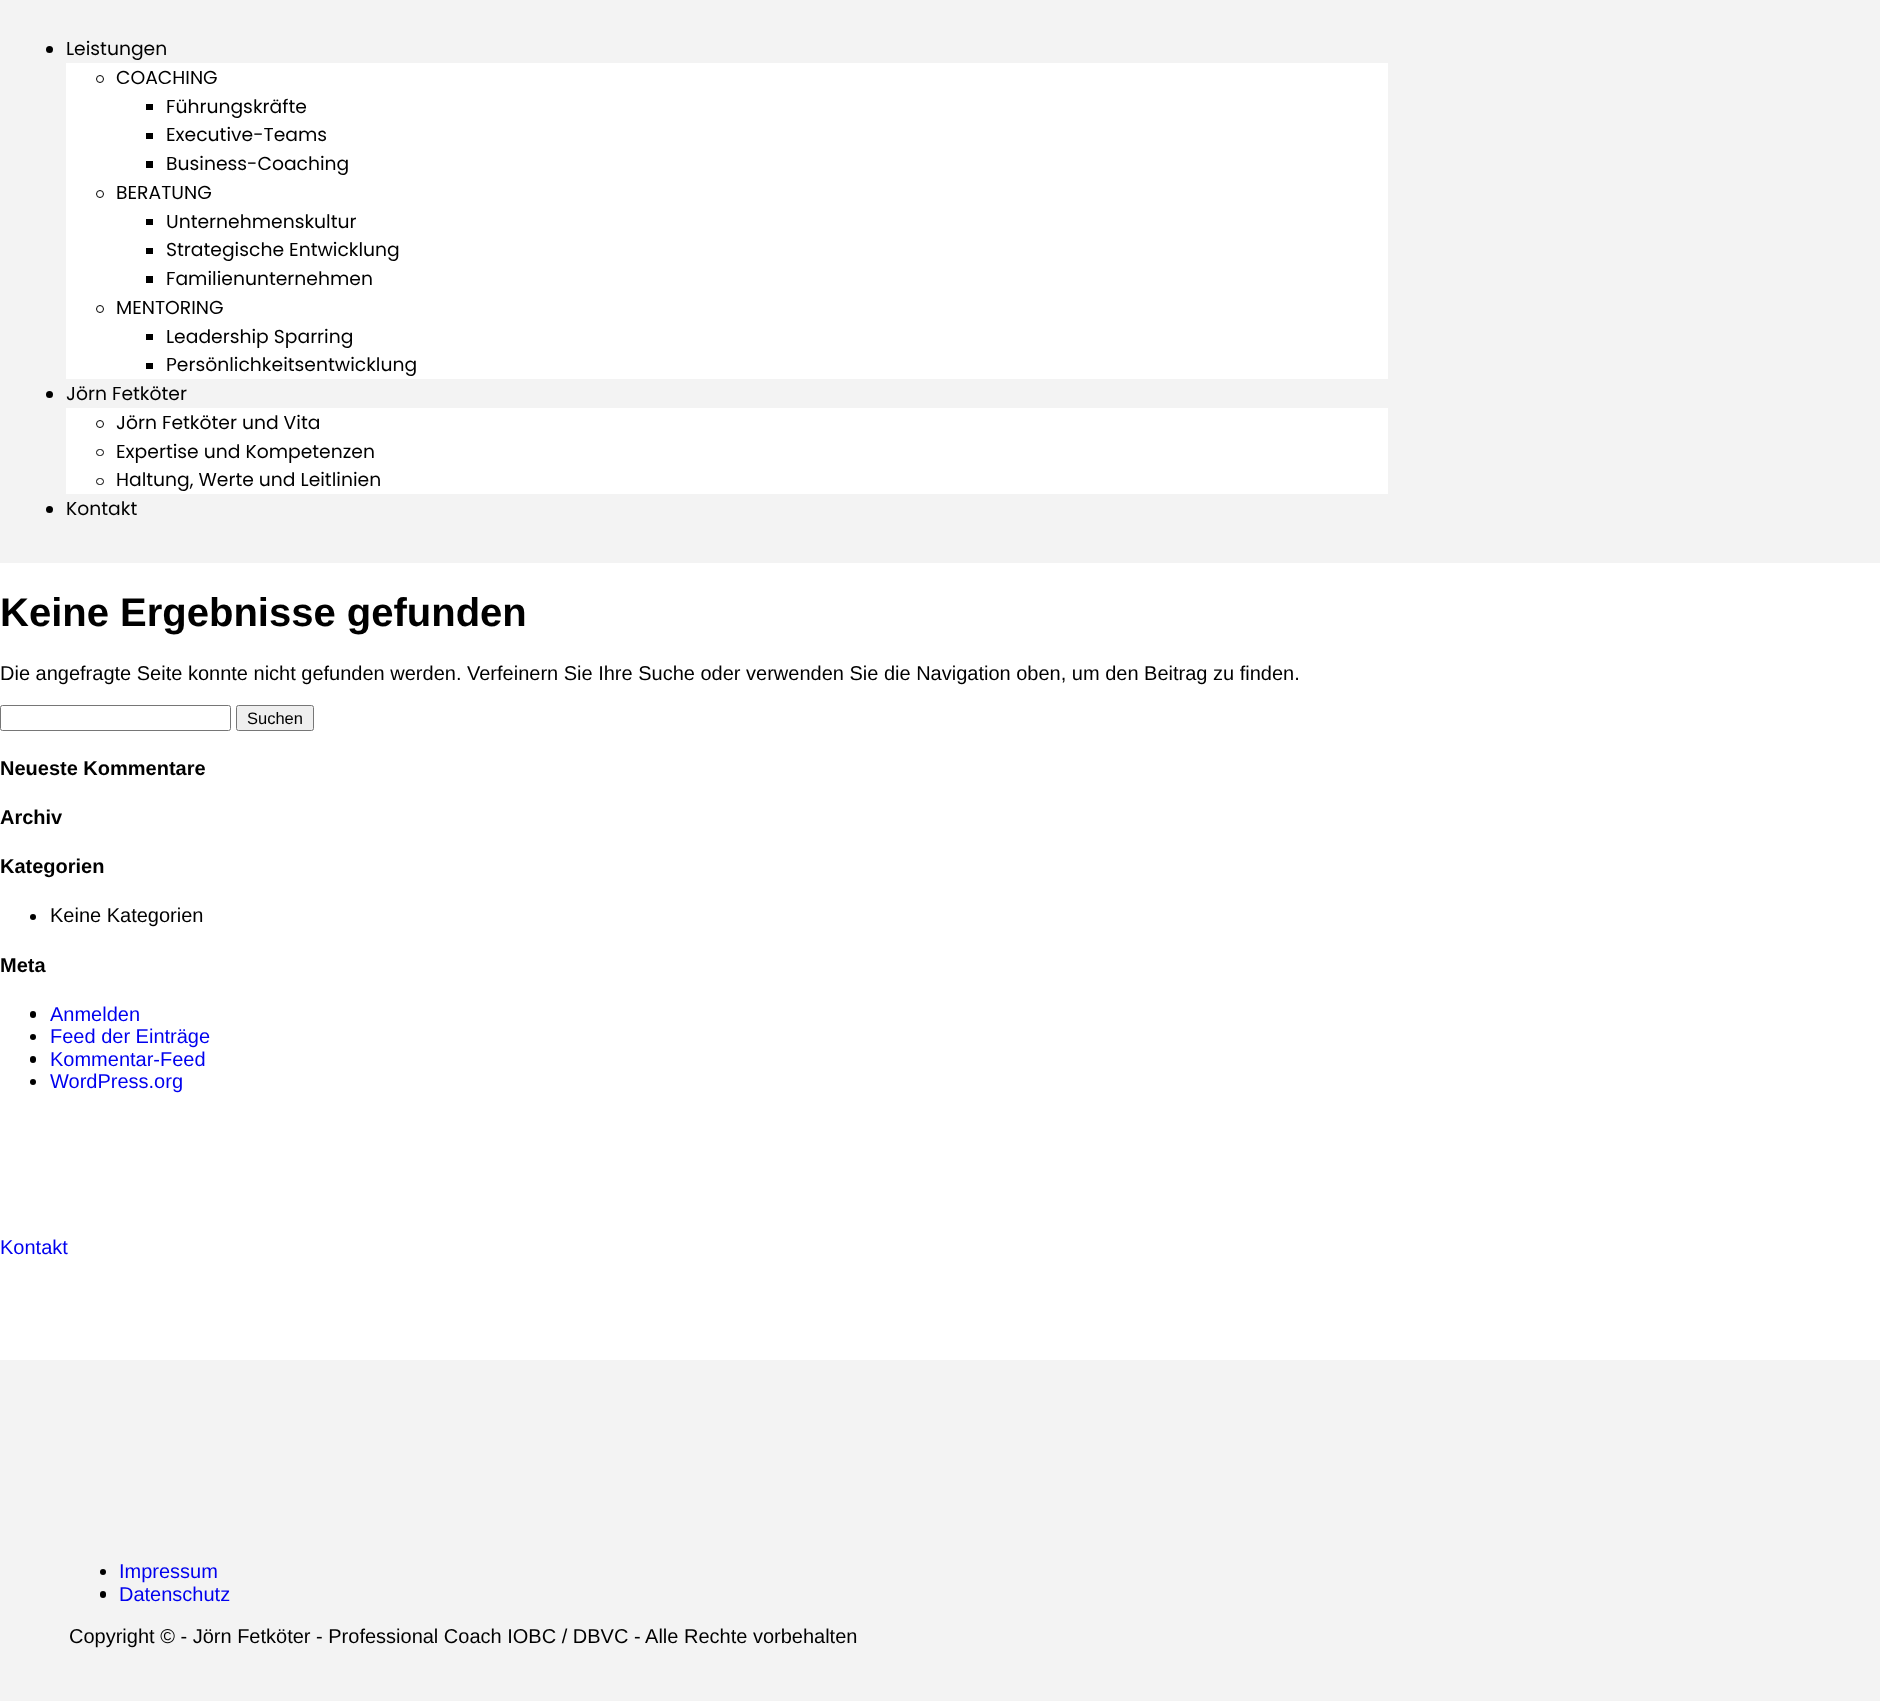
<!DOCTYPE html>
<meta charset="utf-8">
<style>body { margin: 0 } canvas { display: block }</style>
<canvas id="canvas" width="1880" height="1701"></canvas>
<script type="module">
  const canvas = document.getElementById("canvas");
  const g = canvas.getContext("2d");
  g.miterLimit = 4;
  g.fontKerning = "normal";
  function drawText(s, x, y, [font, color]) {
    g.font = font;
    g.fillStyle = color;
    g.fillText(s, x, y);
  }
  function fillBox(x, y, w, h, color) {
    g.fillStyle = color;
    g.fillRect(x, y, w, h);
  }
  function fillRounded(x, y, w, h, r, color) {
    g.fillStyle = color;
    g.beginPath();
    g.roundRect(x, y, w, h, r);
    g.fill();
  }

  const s1 = ["18.75px Poppins", "#000000"];
  const s2 = ["bold 40px Liberation Sans", "#000000"];
  const s3 = ["20px Liberation Sans", "#000000"];
  const s4 = ["16.5px Liberation Sans", "#000000"];
  const s5 = ["bold 20px Liberation Sans", "#000000"];
  const s6 = ["20px Liberation Sans", "#0000EE"];

  fillBox(0, 0, 1880, 1701, "#FFFFFF");
  fillBox(0, 0, 1880, 563, "#F3F3F3");
  g.fillStyle = "#000000";
  g.beginPath();
  g.arc(49.5, 49.5, 3.5, 0, Math.PI * 2);
  g.fill();
  drawText("Leistungen", 66, 55, s1);
  fillBox(66, 63, 1322, 316, "#FFFFFF");
  g.beginPath();
  g.arc(100, 79, 3.5, 0, Math.PI * 2);
  g.strokeStyle = "#000000";
  g.stroke();
  drawText("COACHING", 116, 84, s1);
  fillBox(146, 104, 7, 6, "#000000");
  drawText("Führungskräfte", 166, 113, s1);
  fillBox(146, 133, 7, 6, "#000000");
  drawText("Executive-Teams", 166, 141, s1);
  fillBox(146, 161, 7, 7, "#000000");
  drawText("Business-Coaching", 166, 170, s1);
  g.beginPath();
  g.arc(100, 194, 3.5, 0, Math.PI * 2);
  g.stroke();
  drawText("BERATUNG", 116, 199, s1);
  fillBox(146, 219, 7, 6, "#000000");
  drawText("Unternehmenskultur", 166, 228, s1);
  fillBox(146, 248, 7, 6, "#000000");
  drawText("Strategische Entwicklung", 166, 256, s1);
  fillBox(146, 276, 7, 7, "#000000");
  drawText("Familienunternehmen", 166, 285, s1);
  g.beginPath();
  g.arc(100, 309, 3.5, 0, Math.PI * 2);
  g.stroke();
  drawText("MENTORING", 116, 314, s1);
  fillBox(146, 334, 7, 6, "#000000");
  drawText("Leadership Sparring", 166, 343, s1);
  fillBox(146, 363, 7, 6, "#000000");
  drawText("Persönlichkeitsentwicklung", 166, 371, s1);
  g.beginPath();
  g.arc(49.5, 394.5, 3.5, 0, Math.PI * 2);
  g.fill();
  drawText("Jörn Fetköter", 66, 400, s1);
  fillBox(66, 408, 1322, 86, "#FFFFFF");
  g.beginPath();
  g.arc(100, 424, 3.5, 0, Math.PI * 2);
  g.stroke();
  drawText("Jörn Fetköter und Vita", 116, 429, s1);
  g.beginPath();
  g.roundRect(96.5, 449.5, 7, 6, 3);
  g.stroke();
  drawText("Expertise und Kompetenzen", 116, 458, s1);
  g.beginPath();
  g.roundRect(96.5, 478.5, 7, 6, 3);
  g.stroke();
  drawText("Haltung, Werte und Leitlinien", 116, 486, s1);
  g.beginPath();
  g.arc(49.5, 509.5, 3.5, 0, Math.PI * 2);
  g.fill();
  drawText("Kontakt", 66, 515, s1);
  drawText("Keine Ergebnisse gefunden", 0, 626, s2);
  drawText("Die angefragte Seite konnte nicht gefunden werden. Verfeinern Sie Ihre Suche oder verwenden Sie die Navigation oben, um den Beitrag zu finden.", 0, 680, s3);
  g.beginPath();
  g.roundRect(0.5, 705.5, 230, 25, 2);
  g.strokeStyle = "#767676";
  g.stroke();
  g.fillStyle = "#EFEFEF";
  g.beginPath();
  g.roundRect(236.5, 705.5, 77, 25, 2);
  g.fill();
  g.stroke();
  drawText("Suchen", 247, 724, s4);
  drawText("Neueste Kommentare", 0, 775, s5);
  drawText("Archiv", 0, 824, s5);
  drawText("Kategorien", 0, 873, s5);
  g.beginPath();
  g.arc(33, 917, 3, 0, Math.PI * 2);
  g.fill();
  drawText("Keine Kategorien", 50, 922, s3);
  drawText("Meta", 0, 972, s5);
  fillRounded(30, 1011, 6, 7, 3, "#000000");
  drawText("Anmelden", 50, 1021, s6);
  g.fillStyle = "#000000";
  g.beginPath();
  g.arc(33, 1037, 3, 0, Math.PI * 2);
  g.fill();
  drawText("Feed der Einträge", 50, 1043, s6);
  fillRounded(30, 1056, 6, 7, 3, "#000000");
  drawText("Kommentar-Feed", 50, 1066, s6);
  g.fillStyle = "#000000";
  g.beginPath();
  g.arc(33, 1082, 3, 0, Math.PI * 2);
  g.fill();
  drawText("WordPress.org", 50, 1088, s6);
  drawText("Kontakt", 0, 1254, s6);
  fillBox(0, 1360, 1880, 341, "#F3F3F3");
  g.fillStyle = "#000000";
  g.beginPath();
  g.arc(103, 1572, 3, 0, Math.PI * 2);
  g.fill();
  drawText("Impressum", 119, 1578, s6);
  fillRounded(100, 1591, 6, 7, 3, "#000000");
  drawText("Datenschutz", 119, 1601, s6);
  drawText("Copyright © - Jörn Fetköter - Professional Coach IOBC / DBVC - Alle Rechte vorbehalten", 69, 1643, s3);
</script>
